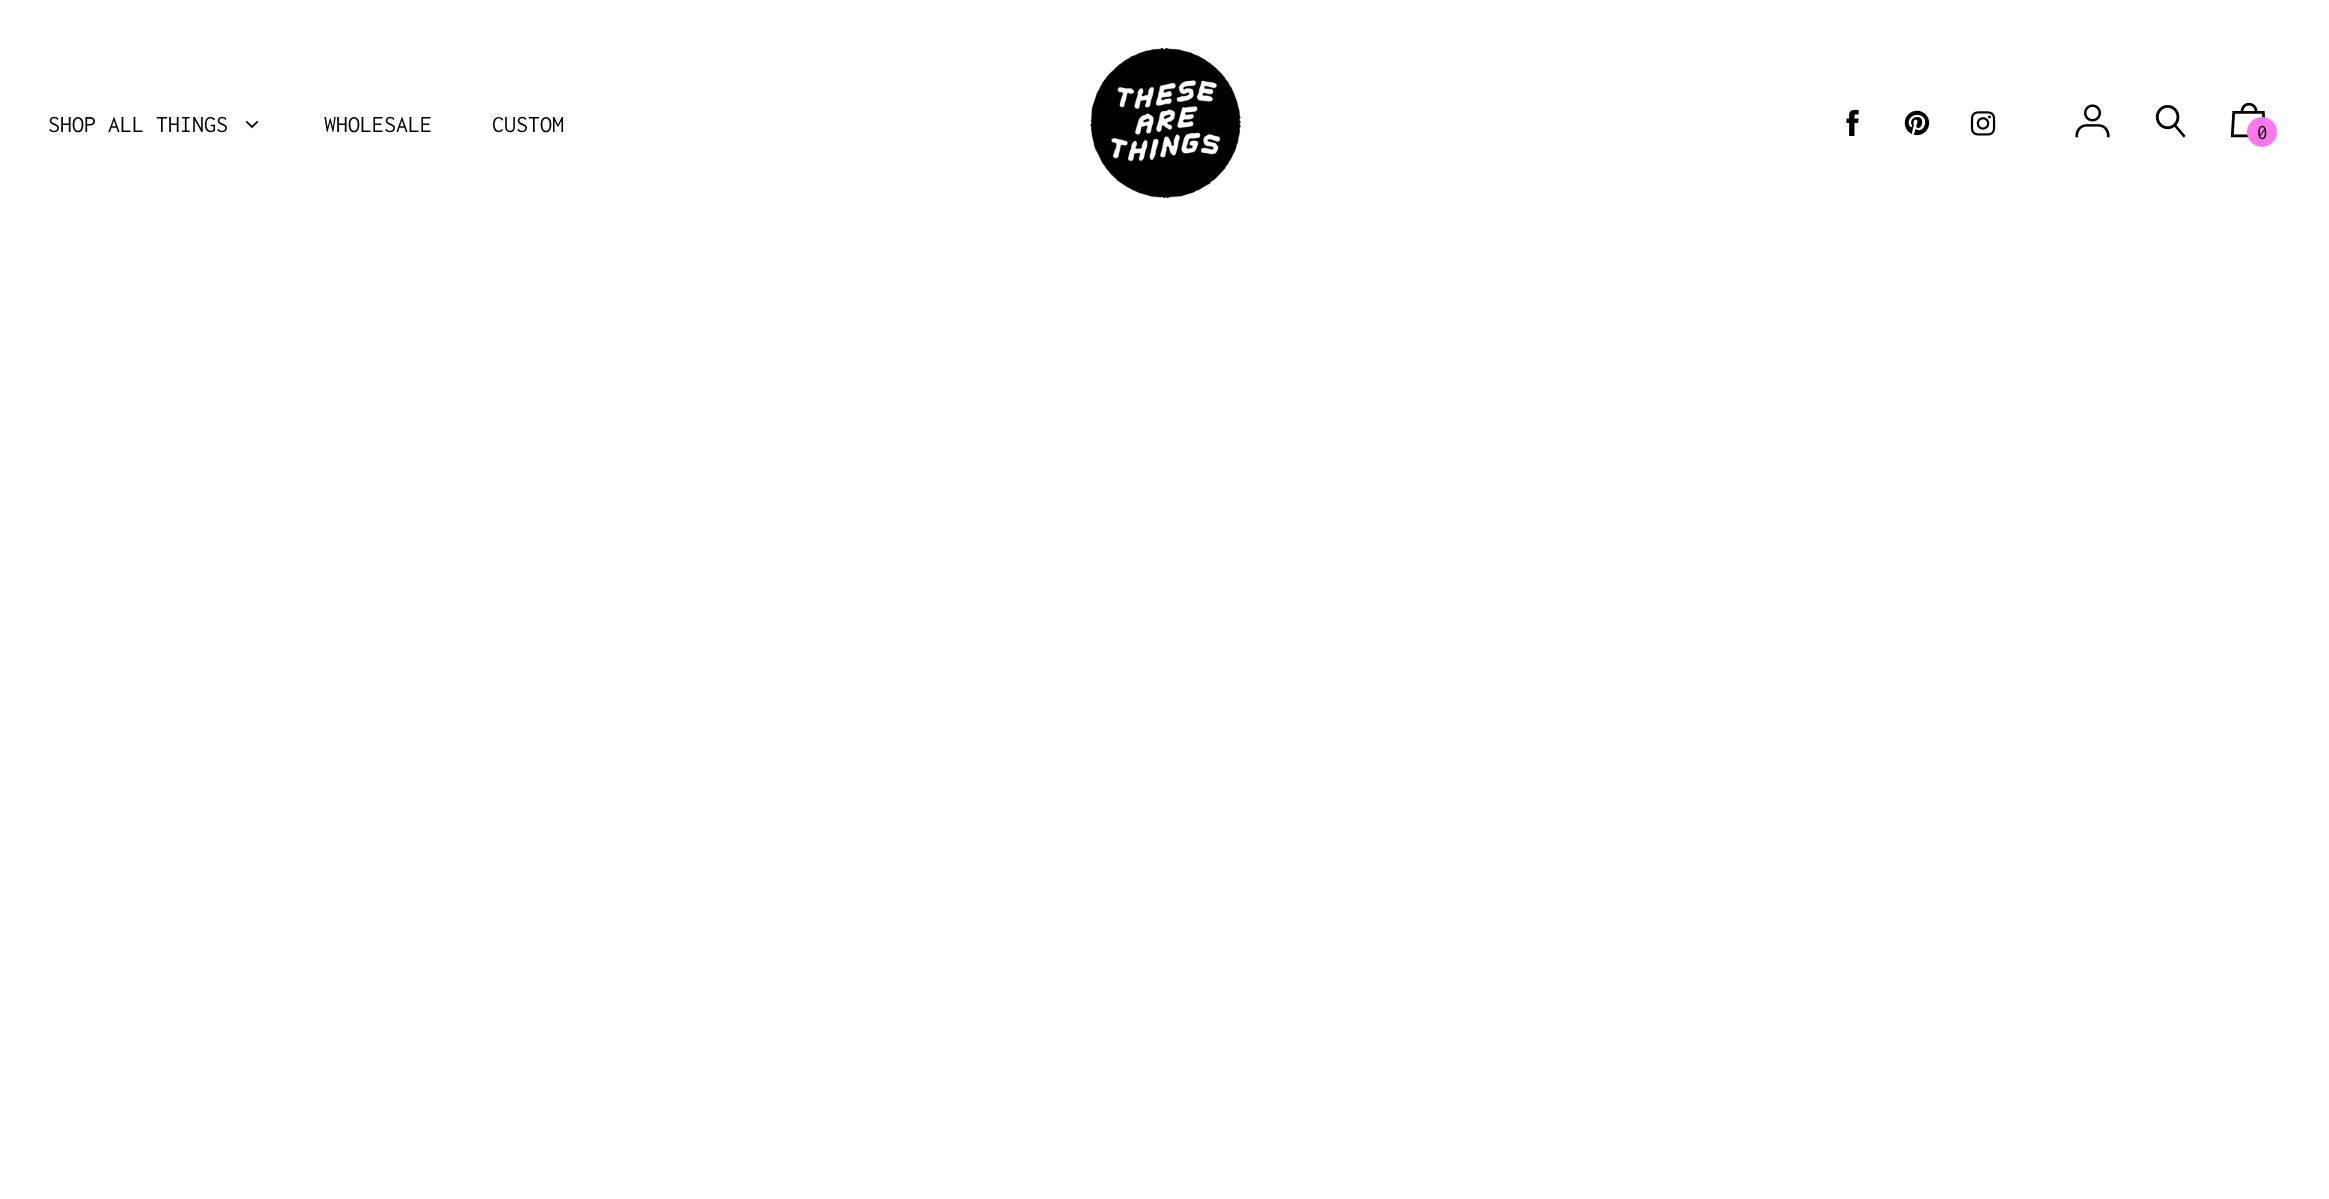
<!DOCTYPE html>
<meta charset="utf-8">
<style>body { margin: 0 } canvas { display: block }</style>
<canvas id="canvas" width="2329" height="1199"></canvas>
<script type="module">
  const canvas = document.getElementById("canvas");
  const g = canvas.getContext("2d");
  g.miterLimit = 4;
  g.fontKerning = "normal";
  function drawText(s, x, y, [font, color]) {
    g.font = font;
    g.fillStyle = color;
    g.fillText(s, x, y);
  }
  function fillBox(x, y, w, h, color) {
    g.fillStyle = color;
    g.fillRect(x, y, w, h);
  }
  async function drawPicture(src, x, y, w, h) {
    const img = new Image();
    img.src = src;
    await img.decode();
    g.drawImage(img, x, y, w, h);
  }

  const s1 = ["24px Inconsolata", "#000000"];
  const s2 = ["21px Inconsolata", "#000000"];

  fillBox(0, 0, 2329, 1199, "#FFFFFF");
  drawText("SHOP ALL THINGS", 48, 132, s1);
  await drawPicture("pic1.png", 245, 120, 14, 9);
  drawText("WHOLESALE", 324, 132, s1);
  drawText("CUSTOM", 492, 132, s1);
  await drawPicture("pic2.png", 1090, 48, 151, 150);
  await drawPicture("pic3.png", 1846, 109, 13, 27);
  await drawPicture("pic4.png", 1904, 110, 26, 26);
  await drawPicture("pic5.png", 1970, 111, 26, 25);
  await drawPicture("pic6.png", 2075, 104, 35, 34);
  await drawPicture("pic7.png", 2155, 105, 31, 33);
  await drawPicture("pic8.png", 2230, 102, 35, 36);
  g.fillStyle = "#FF78EB";
  g.beginPath();
  g.arc(2262, 132, 15, 0, Math.PI * 2);
  g.fill();
  drawText("0", 2257, 139, s2);
</script>
